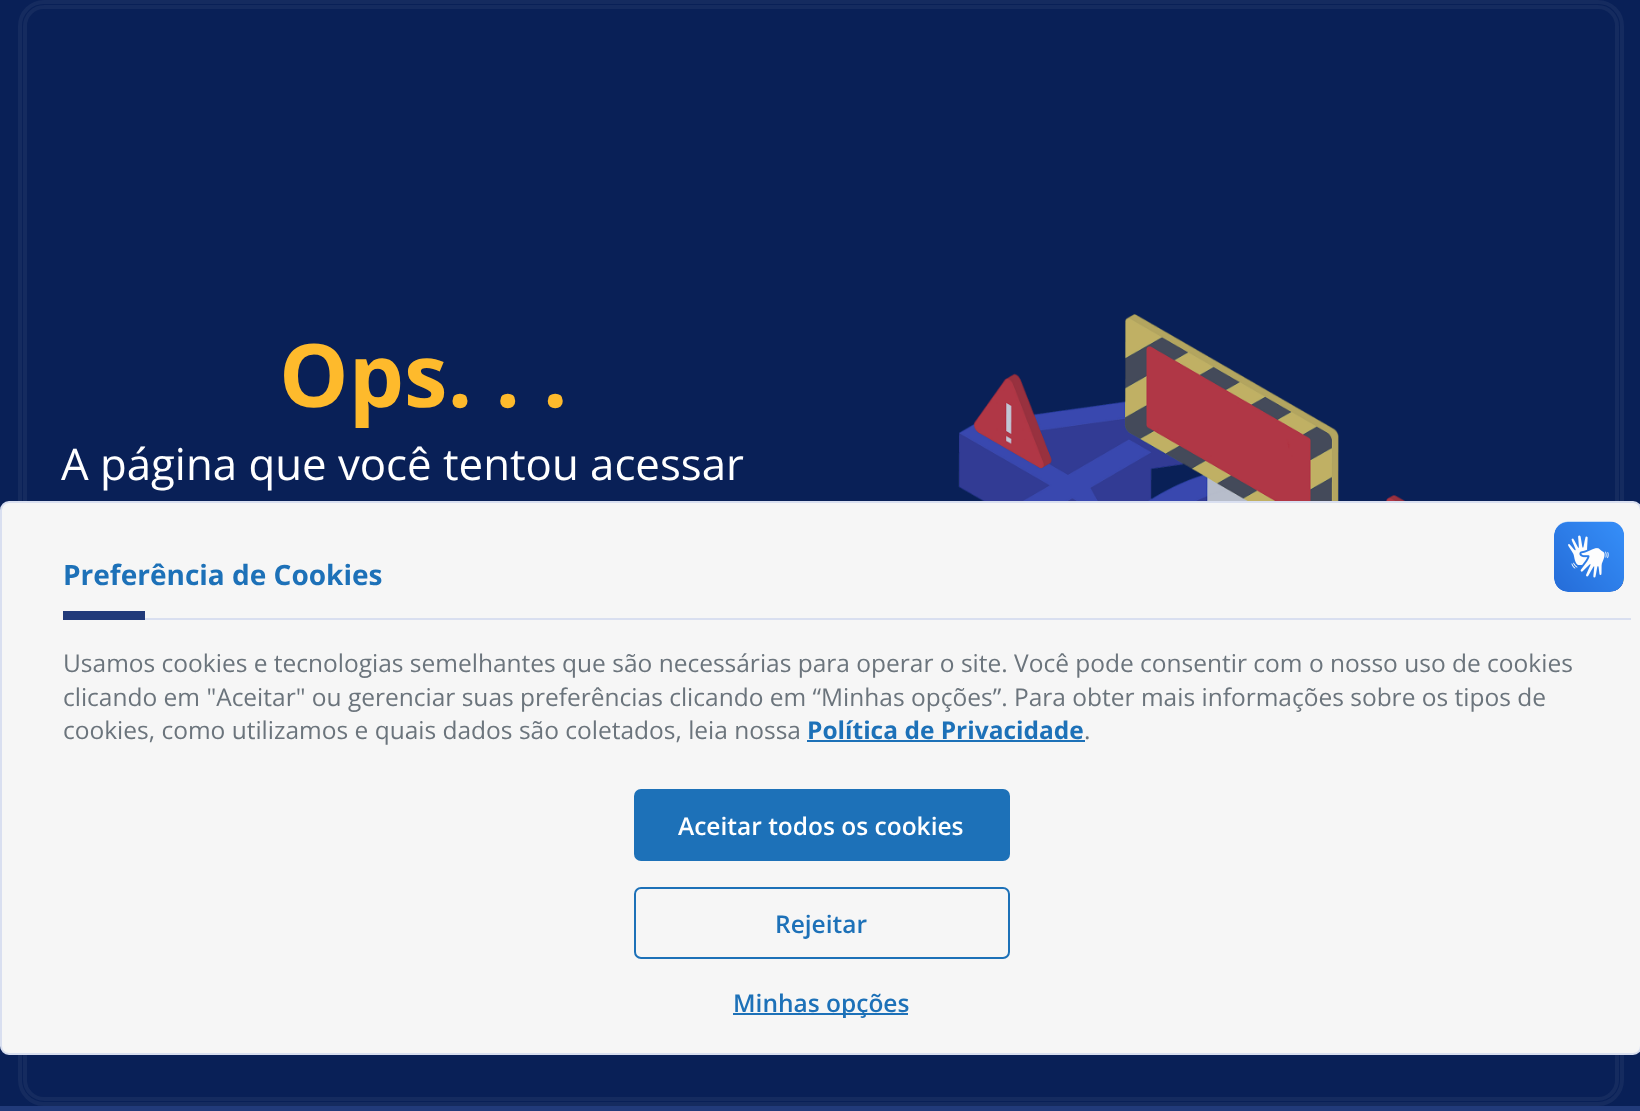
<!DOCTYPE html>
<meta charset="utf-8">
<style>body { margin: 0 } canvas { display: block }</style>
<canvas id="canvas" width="1640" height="1111"></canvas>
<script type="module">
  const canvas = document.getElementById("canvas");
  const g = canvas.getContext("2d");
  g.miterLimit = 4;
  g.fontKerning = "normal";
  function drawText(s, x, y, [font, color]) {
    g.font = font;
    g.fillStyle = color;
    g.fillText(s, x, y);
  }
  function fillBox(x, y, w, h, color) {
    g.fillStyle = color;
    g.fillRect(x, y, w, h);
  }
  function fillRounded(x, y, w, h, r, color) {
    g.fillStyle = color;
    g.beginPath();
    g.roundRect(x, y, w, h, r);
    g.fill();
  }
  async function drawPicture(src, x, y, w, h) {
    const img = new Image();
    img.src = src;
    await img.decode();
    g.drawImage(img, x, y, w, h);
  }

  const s1 = ["bold 87.5px Open Sans", "#FEBA2C"];
  const s2 = ["43.75px Open Sans", "#FFFFFF"];
  const s3 = ["bold 28px Open Sans", "#1D71B8"];
  const s4 = ["24.5px Open Sans", "#6B747C"];
  const s5 = ["bold 24.5px Open Sans", "#1D71B8"];
  const s6 = ["600 24.5px Open Sans", "#FFFFFF"];
  const s7 = ["600 24.5px Open Sans", "#1D71B8"];

  fillBox(0, 0, 1640, 1111, "#092057");
  g.beginPath();
  g.roundRect(20, 2, 1602, 1102, 24);
  g.strokeStyle = "#152B5F";
  g.lineWidth = 4;
  g.stroke();
  g.beginPath();
  g.roundRect(25, 7, 1592, 1092, 19);
  g.stroke();
  drawText("Ops. . .", 279, 407, s1);
  drawText("A página que você tentou acessar", 61, 480, s2);
  await drawPicture("pic1.png", 958, 314, 447, 187);
  g.fillStyle = "#F6F6F6";
  g.beginPath();
  g.roundRect(1, 502, 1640, 552, 8);
  g.fill();
  g.strokeStyle = "#D9DFF0";
  g.lineWidth = 2;
  g.stroke();
  drawText("Preferência de Cookies", 63, 585, s3);
  fillBox(63, 611, 82, 9, "#213A7A");
  fillBox(145, 618, 1486, 2, "#D9DFF0");
  drawText("Usamos cookies e tecnologias semelhantes que são necessárias para operar o site. Você pode consentir com o nosso uso de cookies", 63, 672, s4);
  drawText("clicando em \"Aceitar\" ou gerenciar suas preferências clicando em “Minhas opções”. Para obter mais informações sobre os tipos de", 63, 706, s4);
  drawText("cookies, como utilizamos e quais dados são coletados, leia nossa", 63, 739, s4);
  drawText("Política de Privacidade", 807, 739, s5);
  fillBox(807, 740, 278, 2, "#1D71B8");
  drawText(".", 1084, 739, s4);
  fillRounded(634, 789, 376, 72, 7, "#1D71B8");
  drawText("Aceitar todos os cookies", 678, 835, s6);
  g.beginPath();
  g.roundRect(635, 888, 374, 70, 6);
  g.strokeStyle = "#1D71B8";
  g.stroke();
  drawText("Rejeitar", 775, 933, s7);
  fillBox(733, 1013, 175, 2, "#1D71B8");
  drawText("Minhas opções", 733, 1012, s7);
  await drawPicture("pic2.png", 1554, 521, 70, 71);
  await drawPicture("pic3.png", 1554, 522, 70, 70);
  fillBox(0, 1106, 1640, 5, "#213A7A");
</script>
